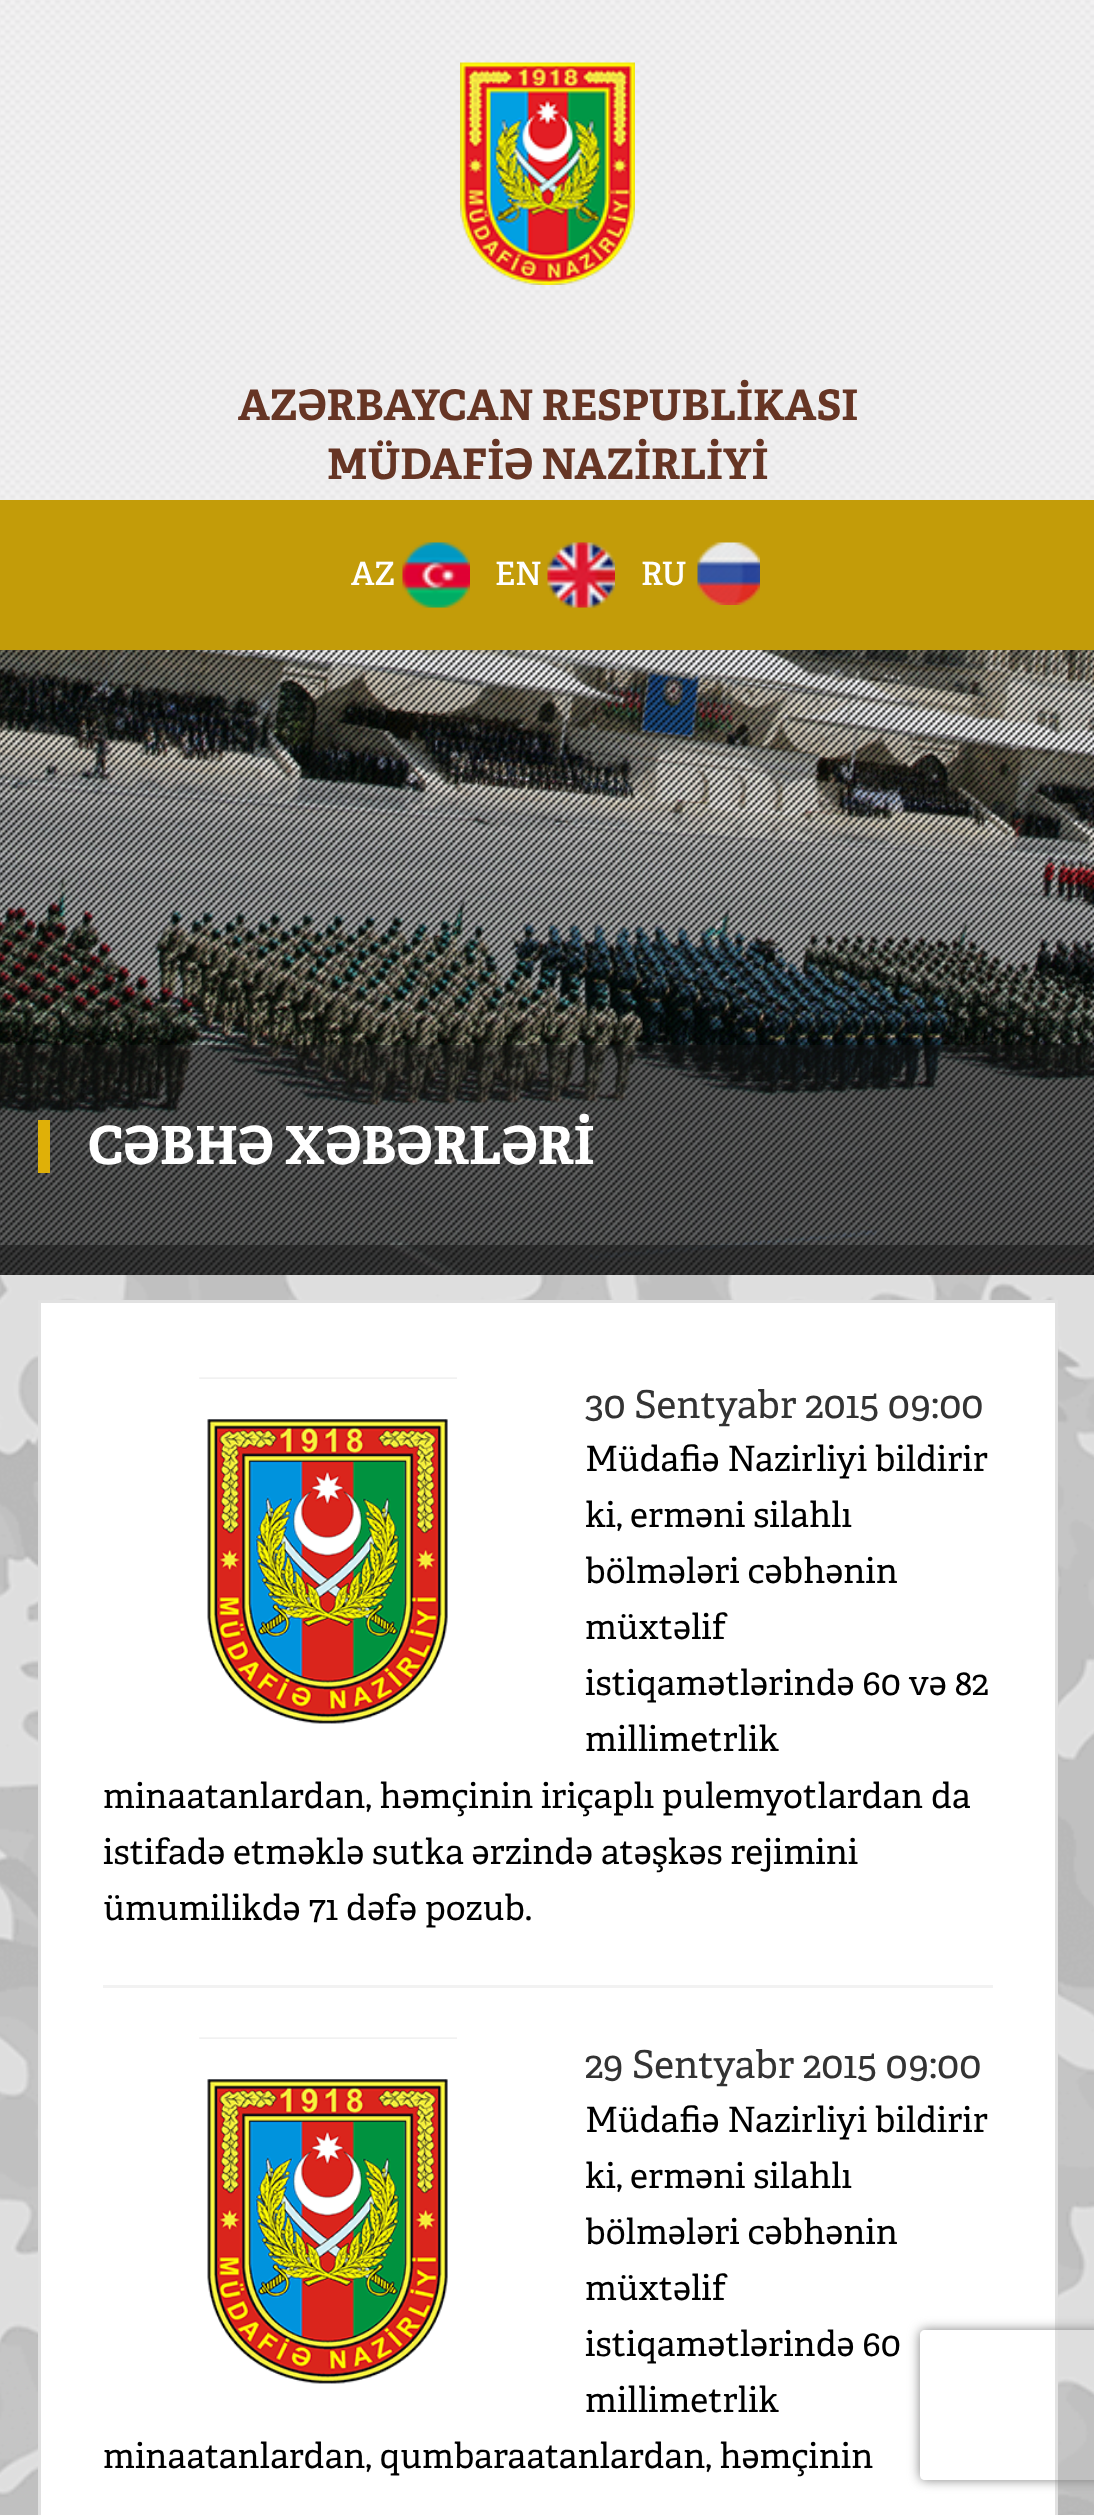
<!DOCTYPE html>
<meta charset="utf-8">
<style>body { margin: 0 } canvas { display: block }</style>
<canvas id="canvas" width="1094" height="2515"></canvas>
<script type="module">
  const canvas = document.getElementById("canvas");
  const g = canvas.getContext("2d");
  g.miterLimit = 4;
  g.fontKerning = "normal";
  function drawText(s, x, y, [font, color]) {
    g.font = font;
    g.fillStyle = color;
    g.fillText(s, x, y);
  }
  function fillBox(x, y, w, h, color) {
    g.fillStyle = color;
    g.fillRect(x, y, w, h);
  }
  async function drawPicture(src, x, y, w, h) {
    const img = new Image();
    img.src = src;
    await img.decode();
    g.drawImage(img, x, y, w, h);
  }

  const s1 = ["bold 42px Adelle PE", "#663524"];
  const s2 = ["600 32px Adelle PE", "#FFFFFF"];
  const s3 = ["bold 52.5px Adelle PE", "#FFFFFF"];
  const s4 = ["38.5px Adelle PE", "#333333"];
  const s5 = ["35px Adelle PE", "#000000"];

  fillBox(0, 0, 1094, 2515, "#FFFFFF");
  await drawPicture("pic1.png", 0, 1275, 1094, 1240);
  await drawPicture("pic2.png", 0, 0, 1094, 500);
  await drawPicture("pic3.png", 460, 62, 175, 223);
  drawText("AZƏRBAYCAN RESPUBLİKASI", 238, 420, s1);
  drawText("MÜDAFİƏ NAZİRLİYİ", 327, 479, s1);
  fillBox(0, 500, 1094, 150, "#C39C09");
  await drawPicture("pic4.png", 402, 542, 68, 66);
  drawText("AZ", 351, 585, s2);
  await drawPicture("pic5.png", 547, 542, 68, 66);
  drawText("EN", 495, 585, s2);
  await drawPicture("pic6.png", 697, 542, 63, 63);
  drawText("RU", 641, 585, s2);
  await drawPicture("pic7.png", 0, 650, 1094, 625);
  await drawPicture("pic8.png", 0, 650, 1094, 625);
  fillBox(0, 1045, 1094, 230, "rgba(22, 22, 22, 0.5)");
  fillBox(0, 1245, 1094, 30, "rgba(22, 22, 22, 0.5)");
  fillBox(38, 1120, 12, 53, "#DFB008");
  drawText("CƏBHƏ XƏBƏRLƏRİ", 88, 1164, s3);
  g.beginPath();
  g.rect(39.5, 1301.5, 1017, 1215);
  g.fill();
  g.strokeStyle = "#E1E1E1";
  g.lineWidth = 3;
  g.stroke();
  fillBox(103, 1985, 890, 3, "#F2F2F2");
  await drawPicture("pic9.png", 199, 1377, 258, 347);
  drawText("30 Sentyabr 2015 09:00", 585, 1418, s4);
  drawText("Müdafiə Nazirliyi bildirir", 585, 1471, s5);
  drawText("ki, erməni silahlı", 585, 1527, s5);
  drawText("bölmələri cəbhənin", 585, 1583, s5);
  drawText("müxtəlif", 585, 1639, s5);
  drawText("istiqamətlərində 60 və 82", 585, 1695, s5);
  drawText("millimetrlik", 585, 1751, s5);
  drawText("minaatanlardan, həmçinin iriçaplı pulemyotlardan da", 103, 1808, s5);
  drawText("istifadə etməklə sutka ərzində atəşkəs rejimini", 103, 1864, s5);
  drawText("ümumilikdə 71 dəfə pozub.", 103, 1920, s5);
  await drawPicture("pic9.png", 199, 2037, 258, 347);
  drawText("29 Sentyabr 2015 09:00", 585, 2078, s4);
  drawText("Müdafiə Nazirliyi bildirir", 585, 2132, s5);
  drawText("ki, erməni silahlı", 585, 2188, s5);
  drawText("bölmələri cəbhənin", 585, 2244, s5);
  drawText("müxtəlif", 585, 2300, s5);
  drawText("istiqamətlərində 60", 585, 2356, s5);
  drawText("millimetrlik", 585, 2412, s5);
  drawText("minaatanlardan, qumbaraatanlardan, həmçinin", 103, 2468, s5);
  g.save();
  g.beginPath();
  g.moveTo(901, 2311);
  g.lineTo(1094, 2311);
  g.lineTo(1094, 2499);
  g.lineTo(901, 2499);
  g.closePath();
  g.moveTo(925, 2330);
  g.lineTo(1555, 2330);
  g.bezierCurveTo(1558, 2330, 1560, 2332, 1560, 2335);
  g.lineTo(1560, 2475);
  g.bezierCurveTo(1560, 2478, 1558, 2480, 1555, 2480);
  g.lineTo(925, 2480);
  g.bezierCurveTo(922, 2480, 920, 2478, 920, 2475);
  g.lineTo(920, 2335);
  g.bezierCurveTo(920, 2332, 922, 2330, 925, 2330);
  g.closePath();
  g.clip("evenodd");
  g.fillStyle = "#808080";
  g.filter = "blur(6px)";
  g.beginPath();
  g.roundRect(920, 2330, 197, 150, 5);
  g.fill();
  g.filter = "none";
  g.restore();
</script>
